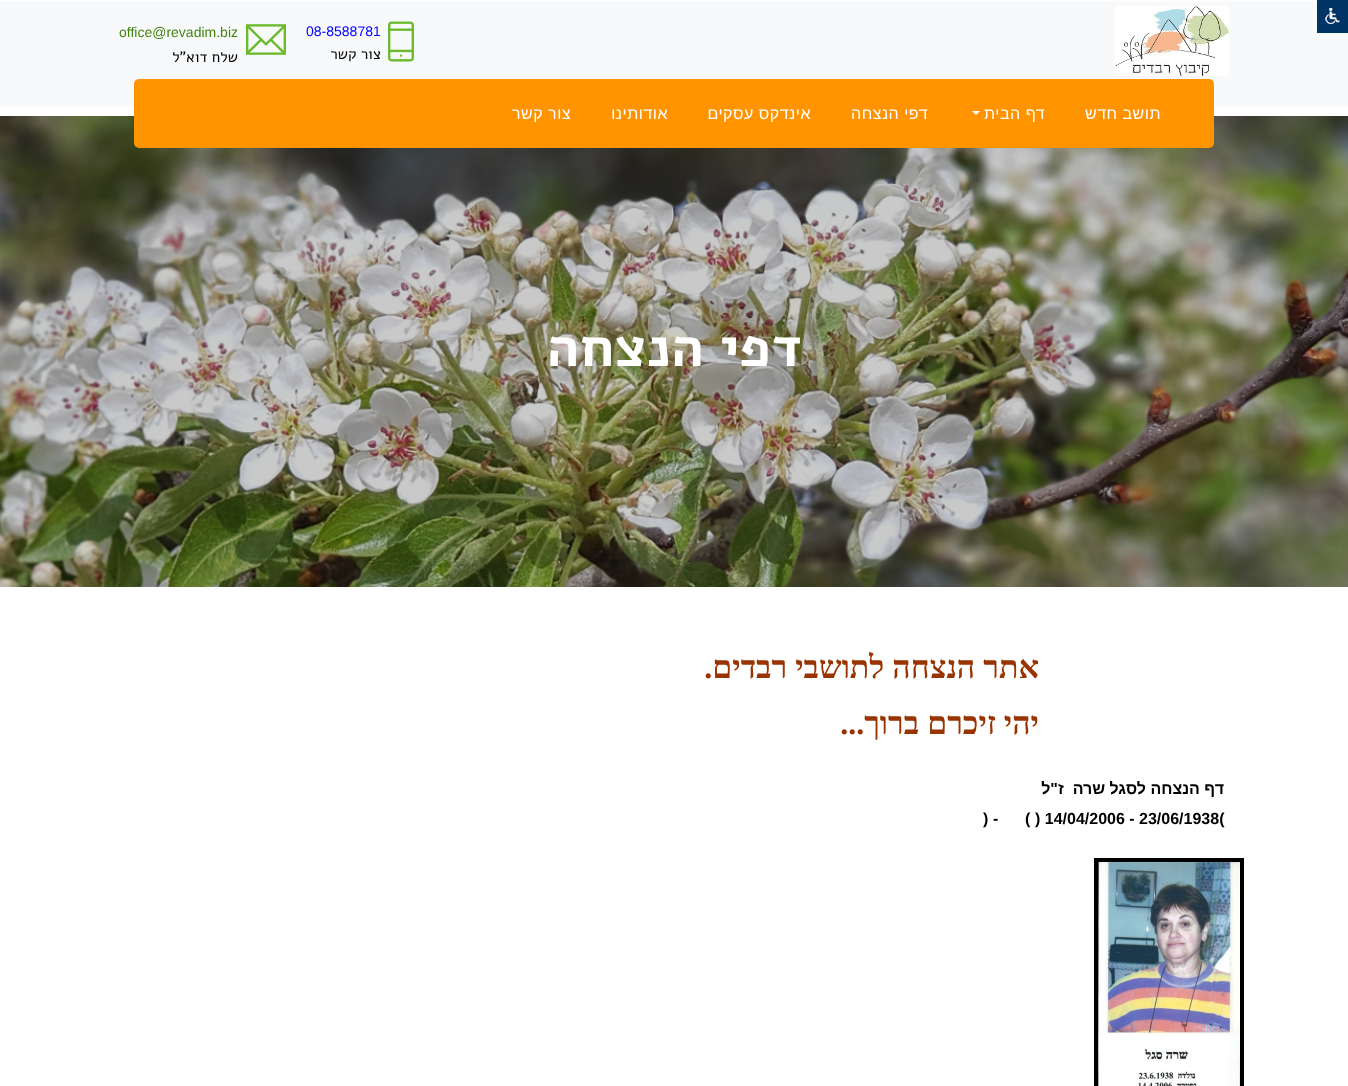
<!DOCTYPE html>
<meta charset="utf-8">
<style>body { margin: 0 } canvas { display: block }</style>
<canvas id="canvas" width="1348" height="1086"></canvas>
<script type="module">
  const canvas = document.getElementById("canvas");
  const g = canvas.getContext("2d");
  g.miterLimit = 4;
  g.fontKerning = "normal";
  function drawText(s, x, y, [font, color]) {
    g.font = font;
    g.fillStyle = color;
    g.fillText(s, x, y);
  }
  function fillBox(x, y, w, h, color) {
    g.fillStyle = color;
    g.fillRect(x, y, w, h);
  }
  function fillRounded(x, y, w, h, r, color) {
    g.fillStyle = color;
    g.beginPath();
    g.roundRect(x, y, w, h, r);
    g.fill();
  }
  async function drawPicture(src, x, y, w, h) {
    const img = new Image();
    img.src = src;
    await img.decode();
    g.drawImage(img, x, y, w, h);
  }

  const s1 = ["14px Liberation Sans", "#0000FF"];
  const s2 = ["15px Alef", "#000000"];
  const s3 = ["14px Liberation Sans", "#458312"];
  const s4 = ["16px Liberation Sans", "#FFFFFF"];
  const s5 = ["bold 56px Alef", "#FFFFFF"];
  const s6 = ["bold 32px Liberation Serif", "#993300"];
  const s7 = ["bold 16px Liberation Sans", "#000000"];

  fillBox(0, 0, 1348, 1086, "#FFFFFF");
  fillBox(0, 1, 1348, 105, "#F8F9FA");
  fillBox(1317, 0, 31, 33, "#003466");
  await drawPicture("pic1.png", 1324, 7, 16, 17);
  await drawPicture("pic2.png", 1115, 6, 114, 70);
  await drawPicture("pic3.png", 388, 21, 26, 41);
  drawText("08-8588781", 306, 36, s1);
  g.direction = "rtl";
  drawText("צור קשר", 381, 59, s2);
  await drawPicture("pic4.png", 246, 24, 40, 31);
  g.direction = "ltr";
  drawText("office@revadim.biz", 119, 37, s3);
  g.direction = "rtl";
  drawText("שלח דוא\"ל", 238, 62, s2);
  await drawPicture("pic5.png", 0, 116, 1348, 471);
  fillRounded(134, 79, 1080, 69, 5, "#FF9400");
  g.letterSpacing = "0.5px";
  drawText("תושב חדש", 1161, 119, s4);
  drawText("דף הבית", 1045, 119, s4);
  g.beginPath();
  g.moveTo(972, 111);
  g.lineTo(980, 111);
  g.lineTo(976, 115);
  g.closePath();
  g.fill();
  drawText("דפי הנצחה", 928, 119, s4);
  drawText("אינדקס עסקים", 811, 119, s4);
  drawText("אודותינו", 668, 119, s4);
  drawText("צור קשר", 571, 119, s4);
  g.letterSpacing = "0px";
  drawText("דפי הנצחה", 802, 366, s5);
  drawText("אתר הנצחה לתושבי רבדים.", 1039, 678, s6);
  drawText("יהי זיכרם ברוך...", 1039, 734, s6);
  drawText("דף הנצחה לסגל שרה  ז\"ל", 1224, 794, s7);
  g.direction = "ltr";
  drawText(") 14/04/2006 - 23/06/1938(", 1035, 824, s7);
  drawText("(", 1025, 824, s7);
  drawText("-", 993, 824, s7);
  drawText(")", 983, 824, s7);
  g.strokeStyle = "#000000";
  g.lineWidth = 4;
  g.strokeRect(1096, 860, 146, 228);
  await drawPicture("pic6.png", 1098, 862, 142, 224);
</script>
